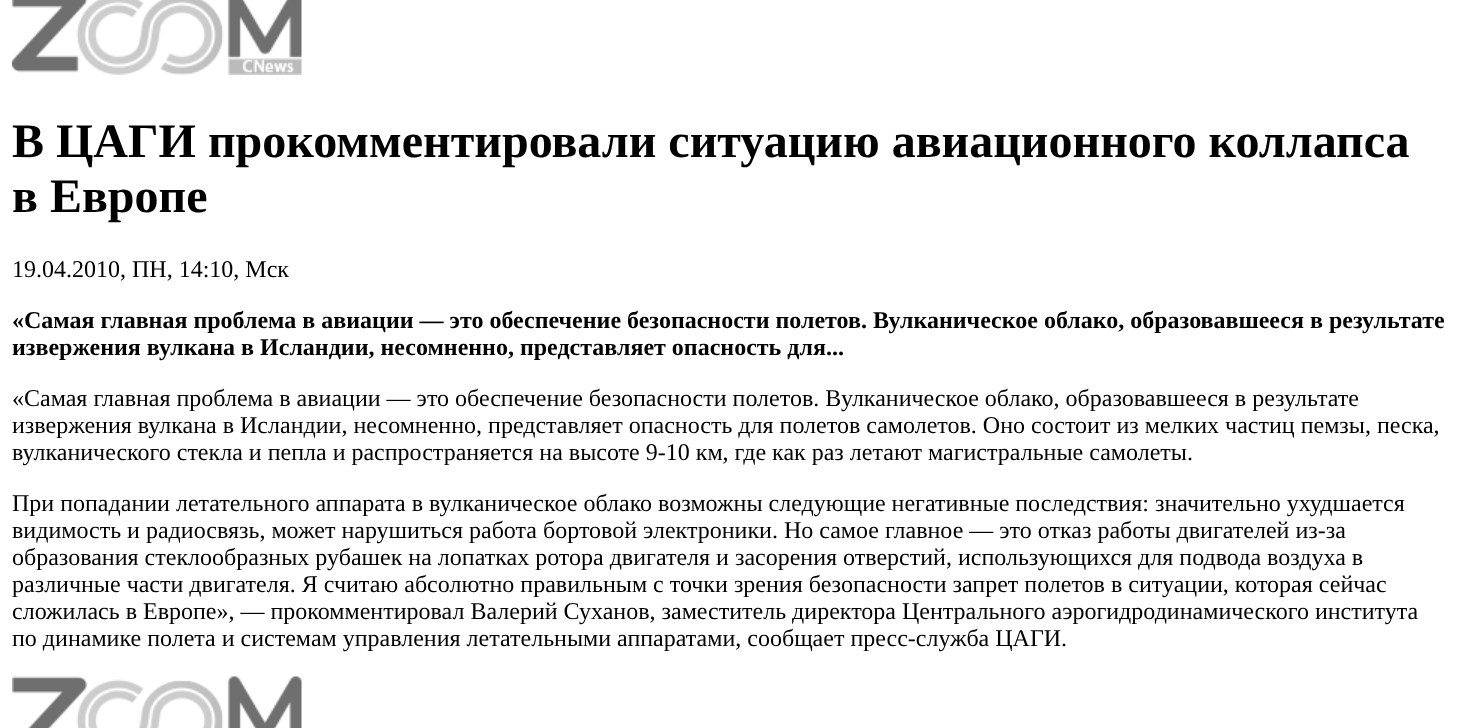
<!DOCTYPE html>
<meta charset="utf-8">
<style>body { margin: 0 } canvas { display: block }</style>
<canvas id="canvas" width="1457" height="728"></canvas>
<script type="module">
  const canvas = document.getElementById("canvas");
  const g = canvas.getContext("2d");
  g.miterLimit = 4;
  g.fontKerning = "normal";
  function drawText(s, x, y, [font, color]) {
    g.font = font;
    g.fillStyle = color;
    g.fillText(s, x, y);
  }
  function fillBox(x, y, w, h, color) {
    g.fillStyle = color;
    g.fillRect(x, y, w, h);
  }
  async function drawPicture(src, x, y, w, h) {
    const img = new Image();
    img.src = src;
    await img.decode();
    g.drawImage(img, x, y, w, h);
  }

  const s1 = ["bold 48px Liberation Serif", "#000000"];
  const s2 = ["24px Liberation Serif", "#000000"];
  const s3 = ["bold 24px Liberation Serif", "#000000"];

  fillBox(0, 0, 1457, 728, "#FFFFFF");
  await drawPicture("pic1.png", 12, 0, 290, 75);
  drawText("В ЦАГИ прокомментировали ситуацию авиационного коллапса", 12, 157, s1);
  drawText("в Европе", 12, 212, s1);
  drawText("19.04.2010, ПН, 14:10, Мск", 12, 277, s2);
  drawText("«Самая главная проблема в авиации — это обеспечение безопасности полетов. Вулканическое облако, образовавшееся в результате", 12, 328, s3);
  drawText("извержения вулкана в Исландии, несомненно, представляет опасность для...", 12, 355, s3);
  drawText("«Самая главная проблема в авиации — это обеспечение безопасности полетов. Вулканическое облако, образовавшееся в результате", 12, 406, s2);
  drawText("извержения вулкана в Исландии, несомненно, представляет опасность для полетов самолетов. Оно состоит из мелких частиц пемзы, песка,", 12, 433, s2);
  drawText("вулканического стекла и пепла и распространяется на высоте 9-10 км, где как раз летают магистральные самолеты.", 12, 460, s2);
  drawText("При попадании летательного аппарата в вулканическое облако возможны следующие негативные последствия: значительно ухудшается", 12, 511, s2);
  drawText("видимость и радиосвязь, может нарушиться работа бортовой электроники. Но самое главное — это отказ работы двигателей из-за", 12, 538, s2);
  drawText("образования стеклообразных рубашек на лопатках ротора двигателя и засорения отверстий, использующихся для подвода воздуха в", 12, 565, s2);
  drawText("различные части двигателя. Я считаю абсолютно правильным с точки зрения безопасности запрет полетов в ситуации, которая сейчас", 12, 592, s2);
  drawText("сложилась в Европе», — прокомментировал Валерий Суханов, заместитель директора Центрального аэрогидродинамического института", 12, 619, s2);
  drawText("по динамике полета и системам управления летательными аппаратами, сообщает пресс-служба ЦАГИ.", 12, 646, s2);
  await drawPicture("pic2.png", 12, 676, 290, 52);
</script>
